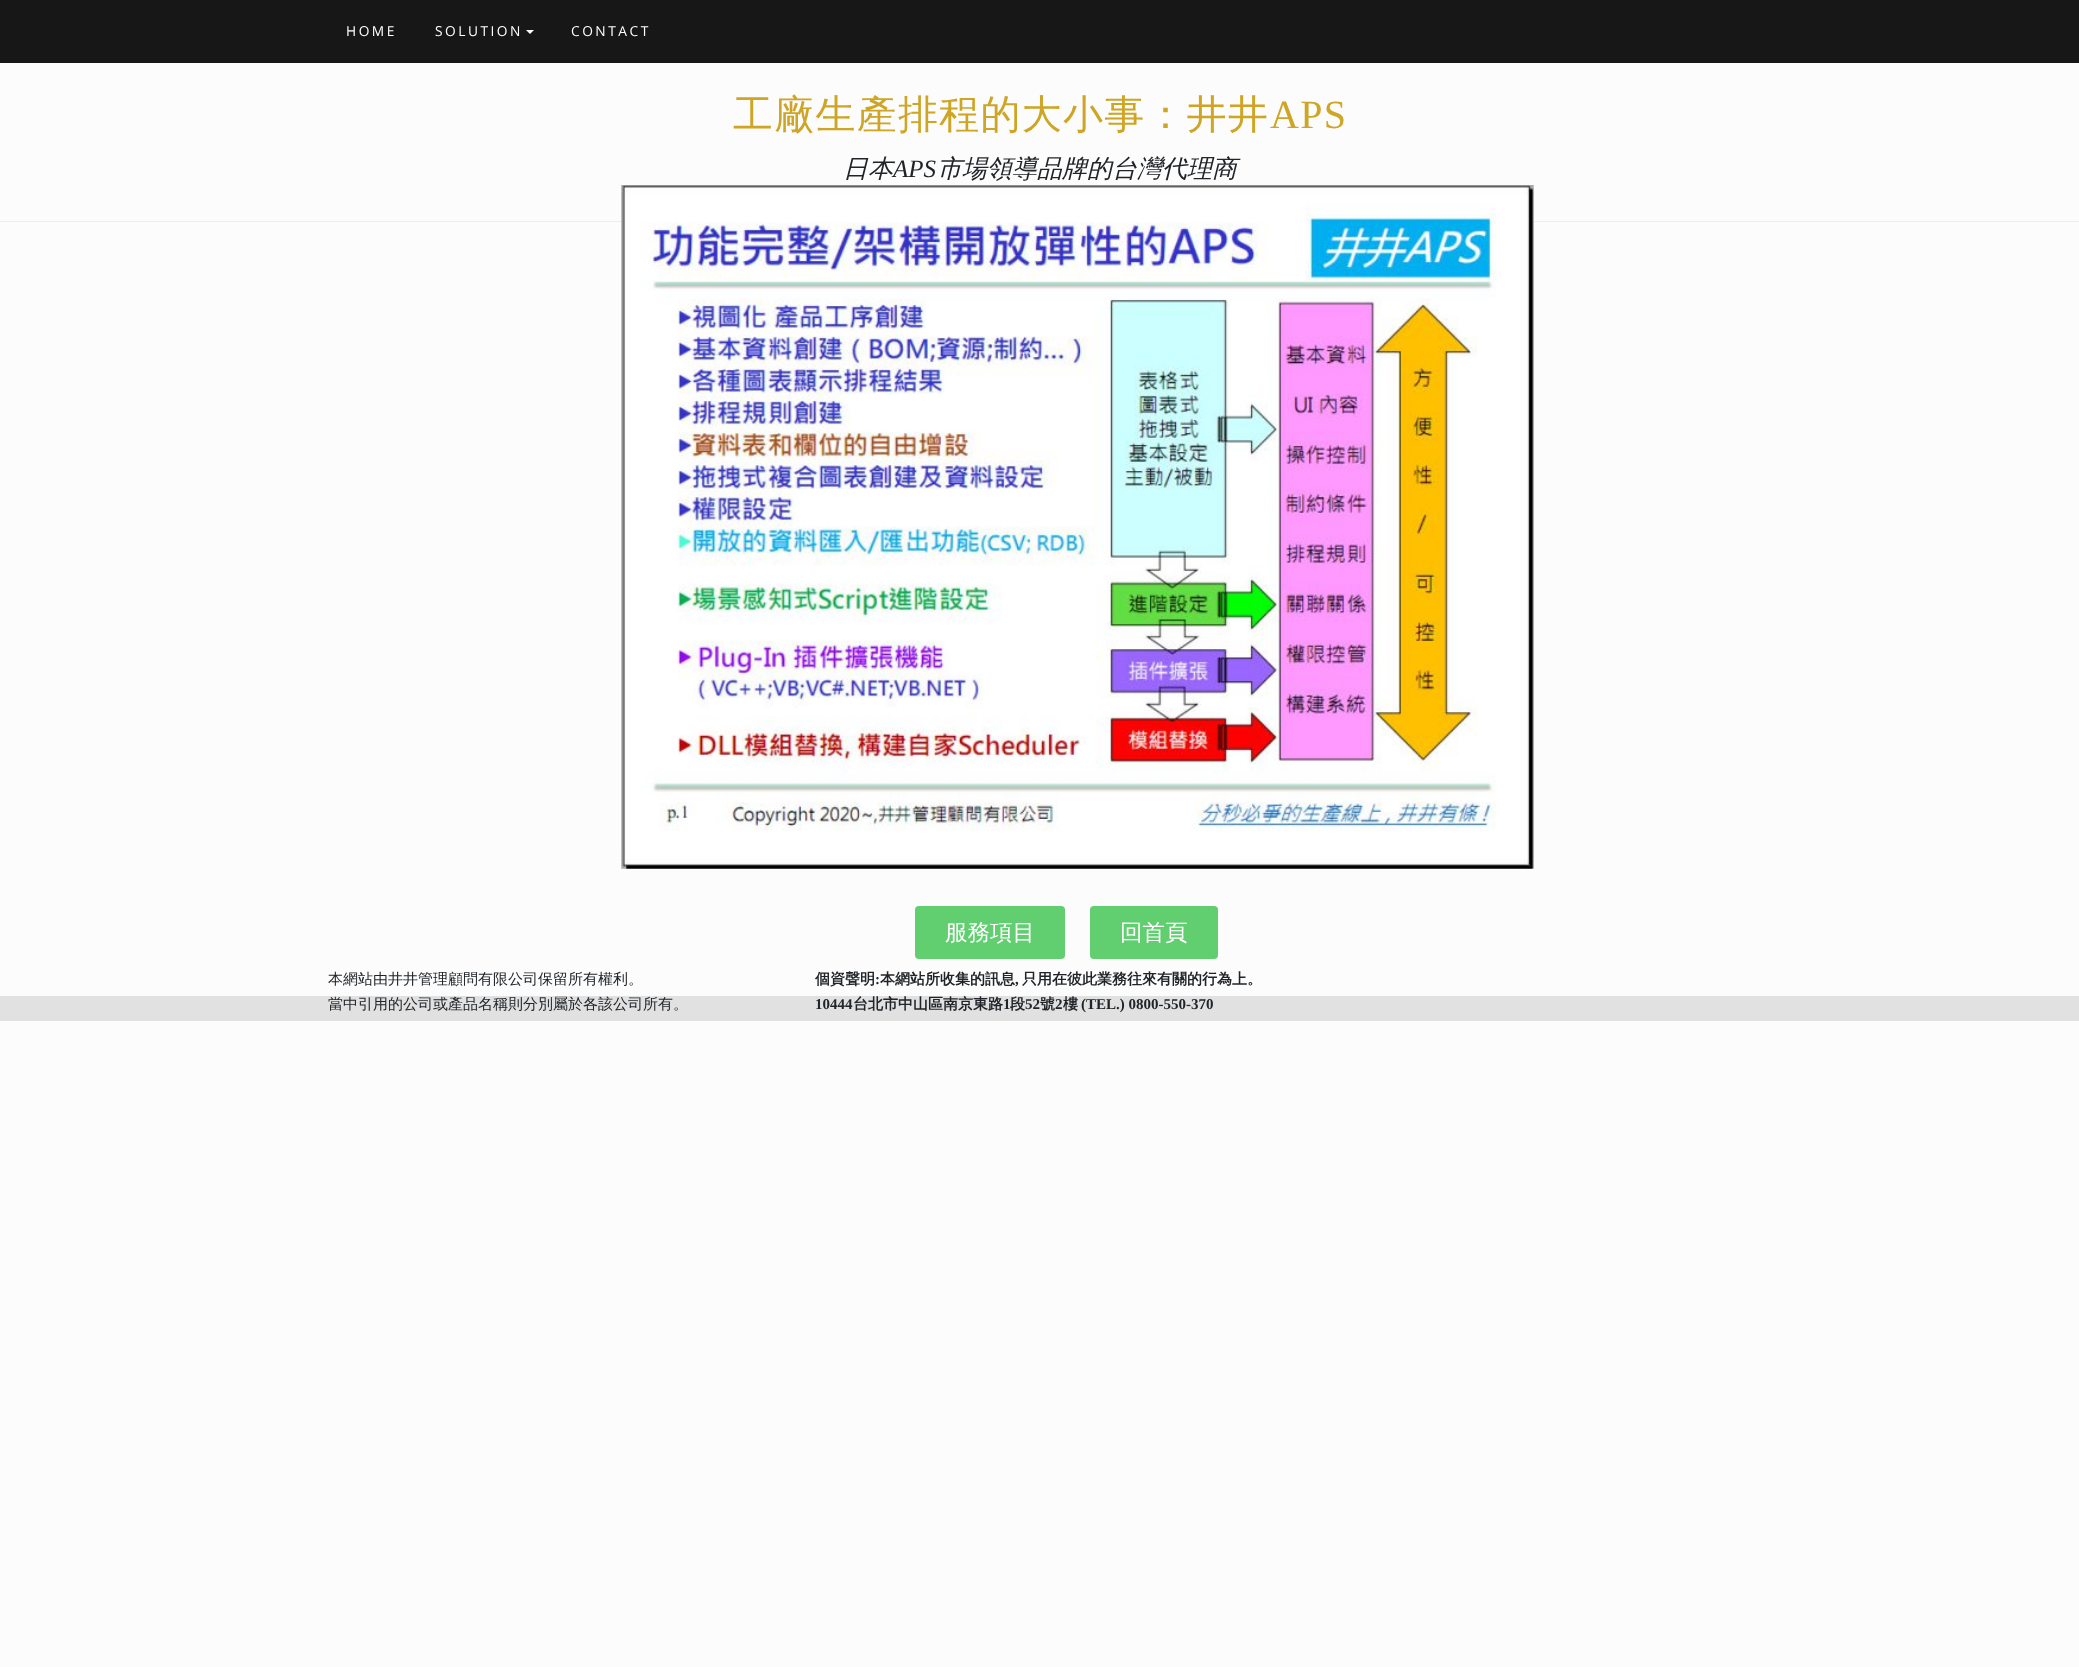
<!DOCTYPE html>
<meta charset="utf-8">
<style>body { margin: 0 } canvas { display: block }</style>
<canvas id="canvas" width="2079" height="1667"></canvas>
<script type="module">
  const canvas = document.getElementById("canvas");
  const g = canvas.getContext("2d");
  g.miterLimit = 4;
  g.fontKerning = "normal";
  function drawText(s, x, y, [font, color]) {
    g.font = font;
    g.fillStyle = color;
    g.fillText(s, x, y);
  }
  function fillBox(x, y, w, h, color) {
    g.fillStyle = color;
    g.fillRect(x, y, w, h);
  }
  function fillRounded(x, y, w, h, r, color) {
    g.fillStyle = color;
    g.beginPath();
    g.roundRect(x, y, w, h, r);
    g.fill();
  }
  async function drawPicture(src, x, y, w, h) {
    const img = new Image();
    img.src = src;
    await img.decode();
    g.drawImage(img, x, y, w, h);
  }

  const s1 = ["13.75px Open Sans", "#FFFFFF"];
  const s2 = ["500 40px WenQuanYi Zen Hei", "#CEA525"];
  const s3 = ["40px Liberation Serif", "#CEA525"];
  const s4 = ["italic 500 25px WenQuanYi Zen Hei", "#212529"];
  const s5 = ["italic 25px Liberation Serif", "#212529"];
  const s6 = ["500 22.5px WenQuanYi Zen Hei", "#FFFFFF"];
  const s7 = ["500 15px WenQuanYi Zen Hei", "#212529"];
  const s8 = ["bold 15px WenQuanYi Zen Hei", "#212529"];
  const s9 = ["bold 15px Liberation Serif", "#212529"];

  fillBox(0, 0, 2079, 1667, "#FCFCFC");
  fillBox(0, 0, 2079, 63, "#171717");
  g.letterSpacing = "2.5px";
  drawText("HOME", 346, 36, s1);
  drawText("SOLUTION", 435, 36, s1);
  g.beginPath();
  g.moveTo(526, 30);
  g.lineTo(534, 30);
  g.lineTo(530, 34);
  g.closePath();
  g.fill();
  drawText("CONTACT", 571, 36, s1);
  fillBox(0, 221, 2079, 1, "#EEEEEE");
  g.letterSpacing = "1.25px";
  drawText("工廠生產排程的大小事：井井", 733, 128, s2);
  drawText("APS", 1270, 128, s3);
  g.letterSpacing = "0px";
  drawText("日本", 843, 177, s4);
  drawText("APS", 893, 177, s5);
  drawText("市場領導品牌的台灣代理商", 937, 177, s4);
  await drawPicture("pic1.png", 621, 185, 913, 684);
  fillRounded(915, 906, 150, 53, 4, "#61CE70");
  drawText("服務項目", 945, 940, s6);
  fillRounded(1090, 906, 128, 53, 4, "#61CE70");
  drawText("回首頁", 1120, 940, s6);
  fillBox(0, 996, 2079, 25, "#E1E1E1");
  drawText("本網站由井井管理顧問有限公司保留所有權利。", 328, 984, s7);
  drawText("當中引用的公司或產品名稱則分別屬於各該公司所有。", 328, 1009, s7);
  drawText("個資聲明", 815, 984, s8);
  drawText(":", 875, 984, s9);
  drawText("本網站所收集的訊息", 880, 984, s8);
  drawText(",", 1015, 984, s9);
  drawText("只用在彼此業務往來有關的行為上。", 1022, 984, s8);
  drawText("10444", 815, 1009, s9);
  drawText("台北市中山區南京東路", 853, 1009, s8);
  drawText("1", 1003, 1009, s9);
  drawText("段", 1010, 1009, s8);
  drawText("52", 1025, 1009, s9);
  drawText("號", 1040, 1009, s8);
  drawText("2", 1055, 1009, s9);
  drawText("樓", 1063, 1009, s8);
  drawText("(TEL.) 0800-550-370", 1081, 1009, s9);
</script>
